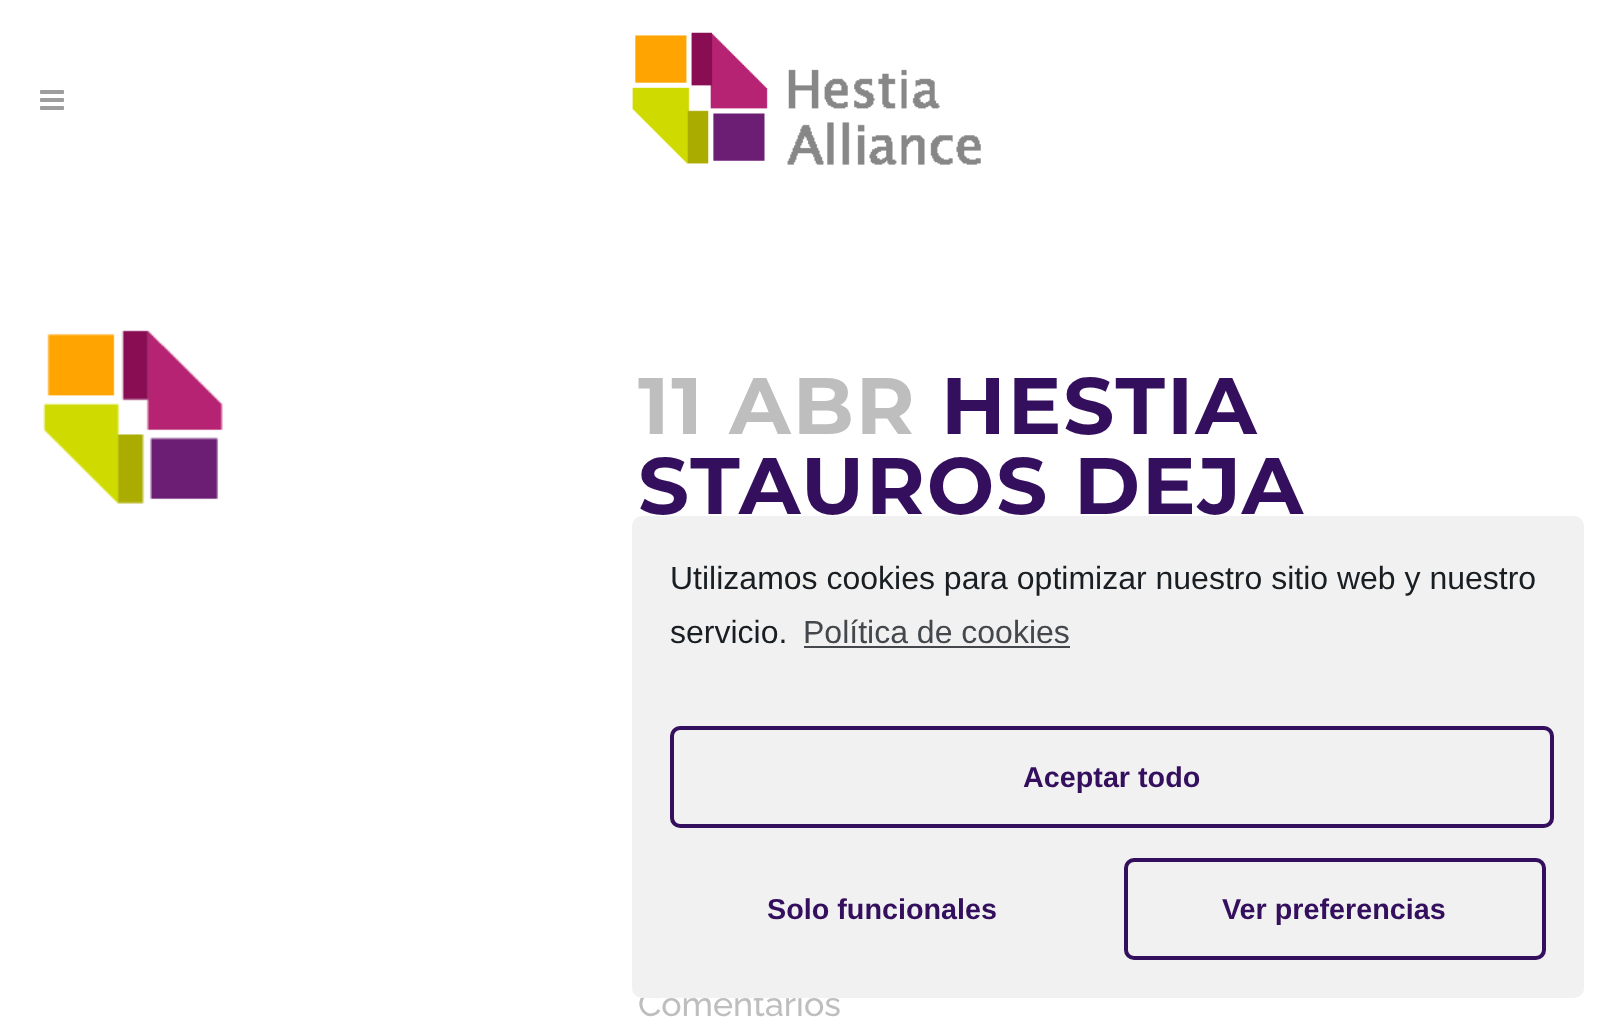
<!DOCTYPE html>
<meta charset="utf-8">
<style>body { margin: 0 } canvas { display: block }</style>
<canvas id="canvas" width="1616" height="1029"></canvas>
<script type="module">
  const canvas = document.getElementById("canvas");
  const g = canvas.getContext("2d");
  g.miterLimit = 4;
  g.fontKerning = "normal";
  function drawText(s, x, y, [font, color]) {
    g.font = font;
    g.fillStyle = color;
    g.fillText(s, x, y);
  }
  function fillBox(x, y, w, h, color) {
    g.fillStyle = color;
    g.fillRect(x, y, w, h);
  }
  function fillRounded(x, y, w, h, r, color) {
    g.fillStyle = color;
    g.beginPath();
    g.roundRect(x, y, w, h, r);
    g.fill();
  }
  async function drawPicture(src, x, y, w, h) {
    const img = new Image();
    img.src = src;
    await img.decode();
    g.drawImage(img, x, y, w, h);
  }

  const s1 = ["bold 80px Montserrat", "#BEBEBE"];
  const s2 = ["bold 80px Montserrat", "#340F5D"];
  const s3 = ["500 34px Raleway", "#BEBEBE"];
  const s4 = ["32px Liberation Sans", "#191E23"];
  const s5 = ["32px Liberation Sans", "#44484C"];
  const s6 = ["bold 28.75px Liberation Sans", "#340F5D"];

  fillBox(0, 0, 1616, 1029, "#FFFFFF");
  await drawPicture("pic1.png", 40, 90, 24, 20);
  await drawPicture("pic2.png", 632, 32, 349, 133);
  await drawPicture("pic3.png", 43, 330, 180, 174);
  g.letterSpacing = "2px";
  drawText("11 ABR", 638, 434, s1);
  drawText("HESTIA", 941, 434, s2);
  drawText("STAUROS DEJA", 638, 514, s2);
  g.letterSpacing = "0px";
  drawText("Comentarios", 638, 1016, s3);
  fillRounded(632, 516, 952, 482, 10, "#F1F1F1");
  drawText("Utilizamos cookies para optimizar nuestro sitio web y nuestro", 670, 589, s4);
  drawText("servicio.", 670, 643, s4);
  drawText("Política de cookies", 803, 643, s5);
  fillBox(804, 646, 266, 2, "#44484C");
  g.beginPath();
  g.roundRect(672, 728, 880, 98, 8);
  g.strokeStyle = "#340F5D";
  g.lineWidth = 4;
  g.stroke();
  drawText("Aceptar todo", 1023, 787, s6);
  drawText("Solo funcionales", 767, 919, s6);
  g.beginPath();
  g.roundRect(1126, 860, 418, 98, 8);
  g.stroke();
  drawText("Ver preferencias", 1222, 919, s6);
</script>
